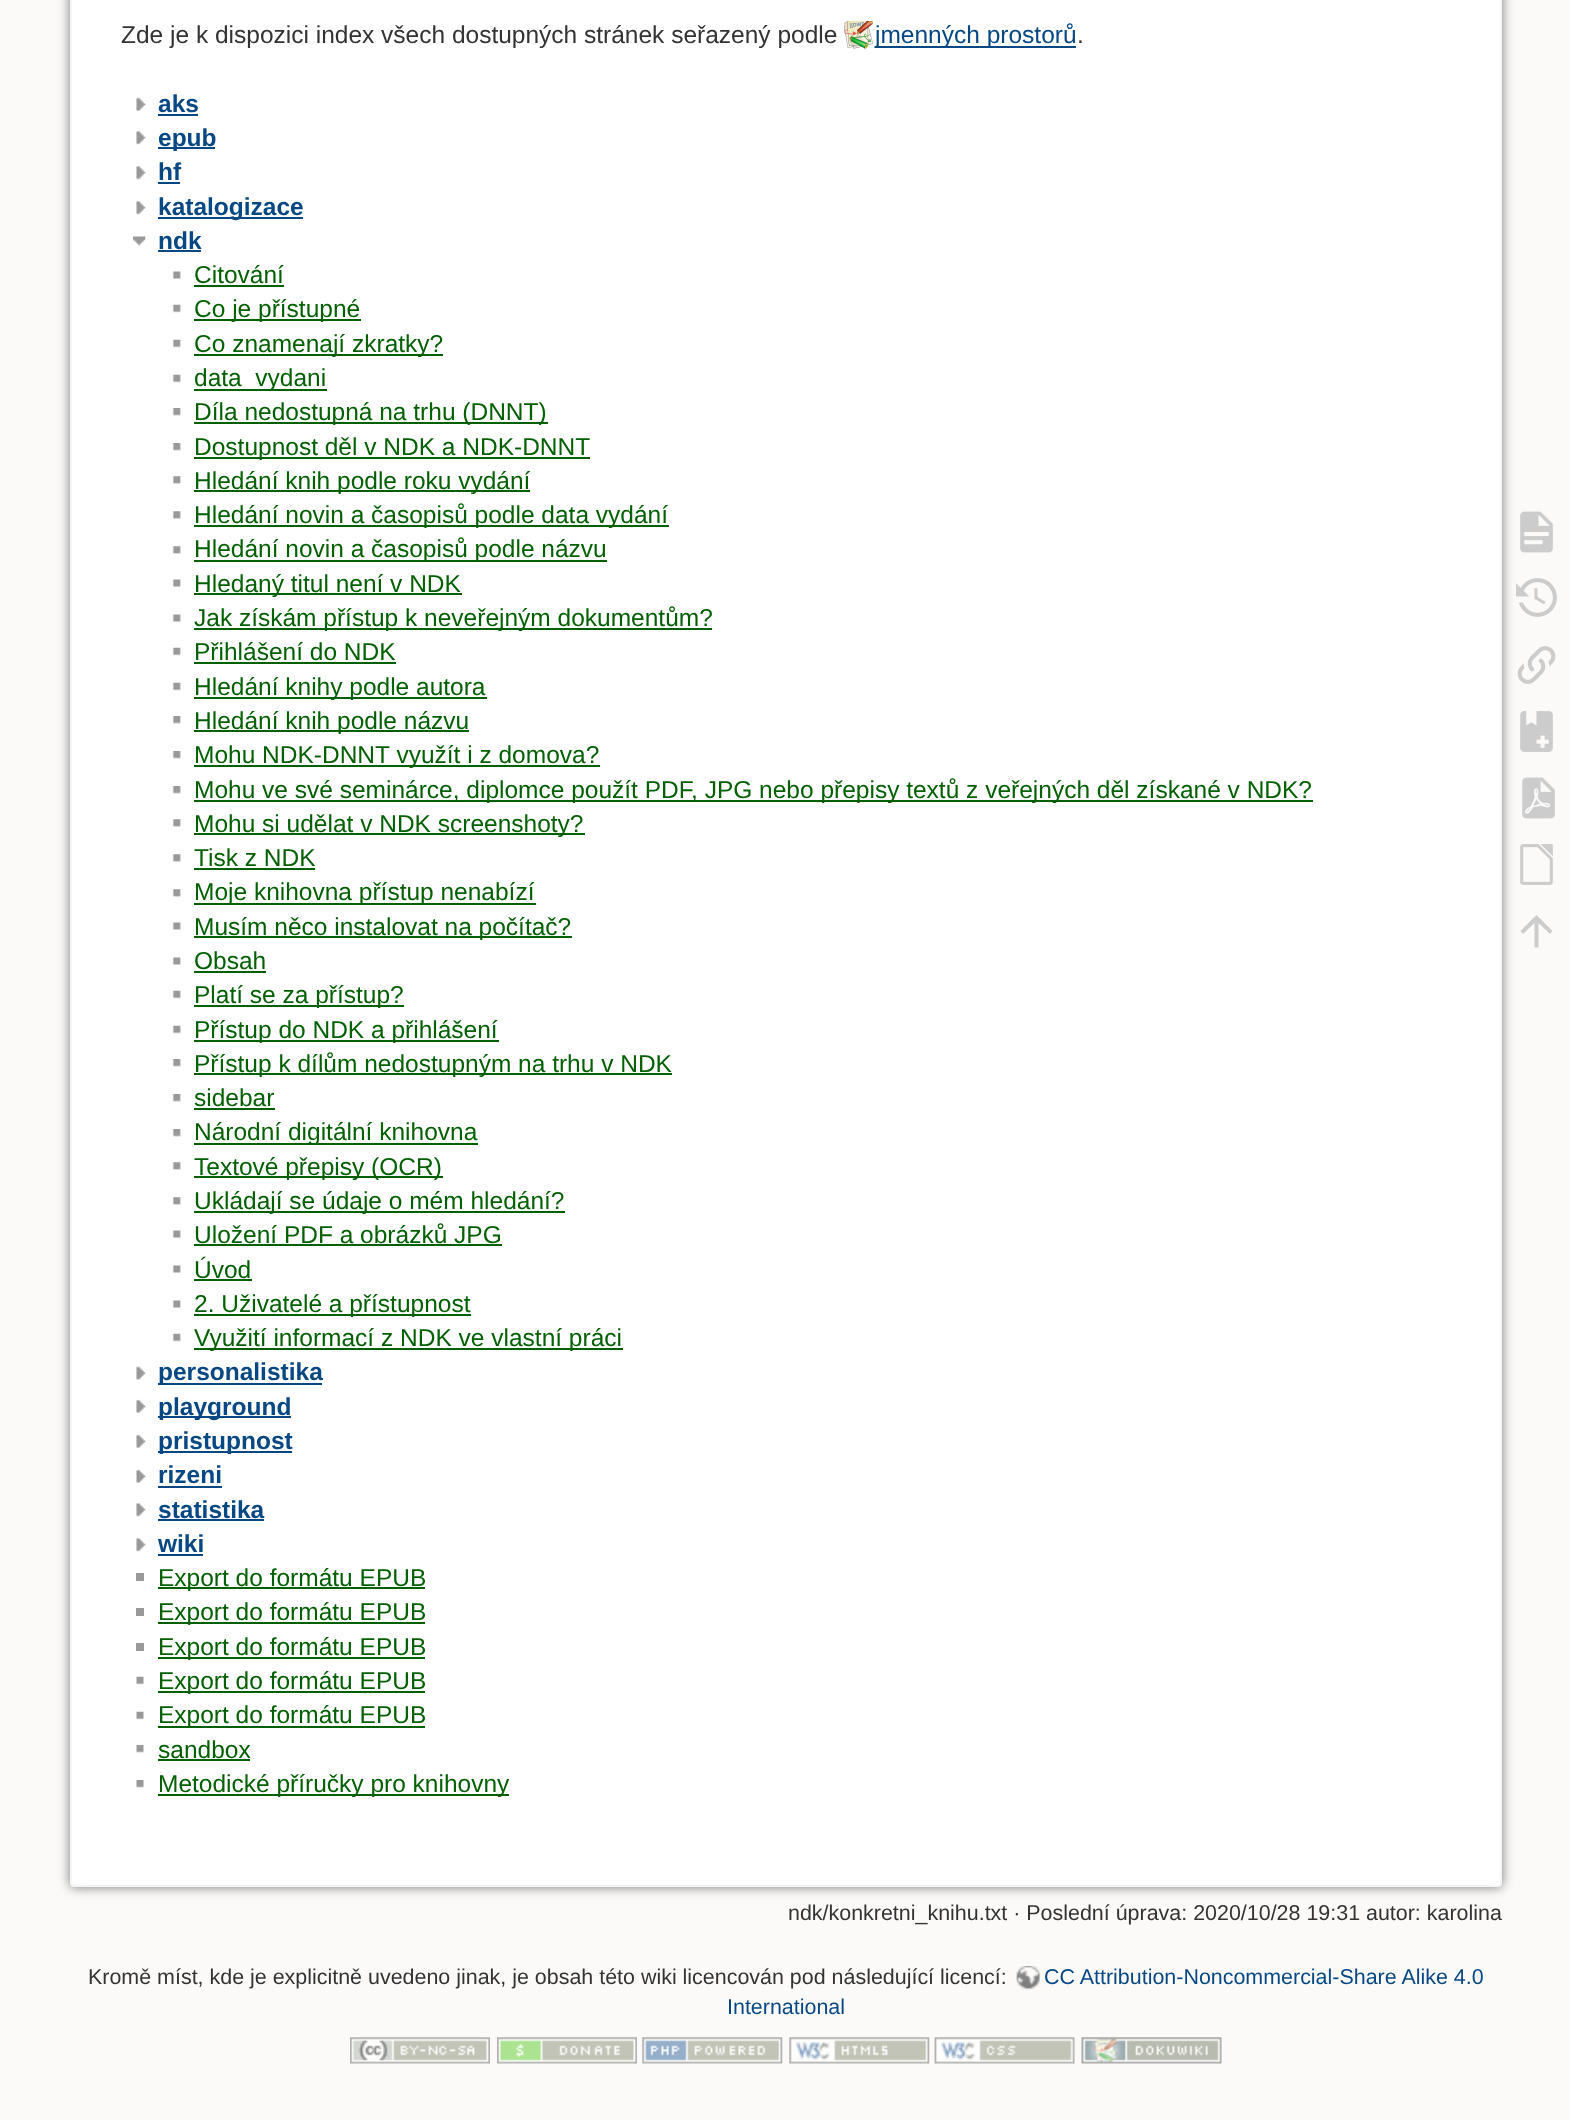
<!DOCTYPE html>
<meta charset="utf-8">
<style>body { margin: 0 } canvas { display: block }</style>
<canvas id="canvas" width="1570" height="2120"></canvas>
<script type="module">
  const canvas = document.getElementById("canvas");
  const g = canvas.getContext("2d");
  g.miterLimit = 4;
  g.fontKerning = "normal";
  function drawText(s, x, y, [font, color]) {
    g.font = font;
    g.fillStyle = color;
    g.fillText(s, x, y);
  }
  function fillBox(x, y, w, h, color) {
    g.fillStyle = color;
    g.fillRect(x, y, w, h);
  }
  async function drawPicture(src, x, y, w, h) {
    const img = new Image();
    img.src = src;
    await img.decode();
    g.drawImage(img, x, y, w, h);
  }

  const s1 = ["24.5px Liberation Sans", "#333333"];
  const s2 = ["24.5px Liberation Sans", "#064784"];
  const s3 = ["bold 24.5px Liberation Sans", "#064784"];
  const s4 = ["24.5px Liberation Sans", "#025F02"];
  const s5 = ["21.45px Liberation Sans", "#333333"];
  const s6 = ["21.45px Liberation Sans", "#064784"];

  fillBox(0, 0, 1570, 2120, "#FBFAF9");
  g.fillStyle = "#757575";
  g.filter = "blur(6px)";
  g.beginPath();
  g.roundRect(70, -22, 1432, 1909, 4);
  g.fill();
  g.filter = "none";
  g.fillStyle = "#FFFFFF";
  g.beginPath();
  g.roundRect(71, -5, 1430, 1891, 3);
  g.fill();
  g.strokeStyle = "#F5F5F5";
  g.lineWidth = 2;
  g.stroke();
  drawText("Zde je k dispozici index všech dostupných stránek seřazený podle", 121, 43, s1);
  await drawPicture("pic1.png", 844, 21, 29, 28);
  fillBox(875, 46, 201, 2, "#064784");
  drawText("jmenných prostorů", 875, 43, s2);
  drawText(".", 1077, 43, s1);
  await drawPicture("pic2.png", 136, 97, 10, 14);
  drawText("aks", 158, 112, s3);
  fillBox(158, 114, 40, 2, "#064784");
  await drawPicture("pic3.png", 136, 131, 10, 14);
  fillBox(158, 147, 57, 2, "#064784");
  drawText("epub", 158, 146, s3);
  await drawPicture("pic3.png", 136, 166, 10, 14);
  drawText("hf", 158, 180, s3);
  fillBox(158, 182, 22, 2, "#064784");
  await drawPicture("pic3.png", 136, 201, 10, 14);
  fillBox(158, 217, 145, 2, "#064784");
  drawText("katalogizace", 158, 215, s3);
  await drawPicture("pic4.png", 133, 236, 13, 10);
  drawText("ndk", 158, 249, s3);
  fillBox(158, 250, 43, 2, "#064784");
  await drawPicture("pic5.png", 172, 271, 9, 8);
  drawText("Citování", 194, 283, s4);
  fillBox(194, 285, 90, 2, "#025F02");
  await drawPicture("pic6.png", 172, 304, 9, 9);
  fillBox(194, 319, 167, 2, "#025F02");
  drawText("Co je přístupné", 194, 317, s4);
  await drawPicture("pic6.png", 172, 339, 9, 9);
  fillBox(194, 354, 249, 2, "#025F02");
  drawText("Co znamenají zkratky?", 194, 352, s4);
  await drawPicture("pic6.png", 172, 374, 9, 9);
  fillBox(194, 389, 133, 2, "#025F02");
  drawText("data_vydani", 194, 386, s4);
  await drawPicture("pic7.png", 172, 408, 9, 8);
  fillBox(194, 422, 354, 2, "#025F02");
  drawText("Díla nedostupná na trhu (DNNT)", 194, 420, s4);
  await drawPicture("pic7.png", 172, 443, 9, 8);
  fillBox(194, 457, 396, 2, "#025F02");
  drawText("Dostupnost děl v NDK a NDK-DNNT", 194, 455, s4);
  await drawPicture("pic8.png", 172, 476, 9, 8);
  fillBox(194, 490, 336, 2, "#025F02");
  drawText("Hledání knih podle roku vydání", 194, 489, s4);
  await drawPicture("pic8.png", 172, 511, 9, 8);
  fillBox(194, 525, 475, 2, "#025F02");
  drawText("Hledání novin a časopisů podle data vydání", 194, 523, s4);
  await drawPicture("pic8.png", 172, 546, 9, 8);
  fillBox(194, 560, 413, 2, "#025F02");
  drawText("Hledání novin a časopisů podle názvu", 194, 557, s4);
  await drawPicture("pic5.png", 172, 579, 9, 8);
  fillBox(194, 593, 268, 2, "#025F02");
  drawText("Hledaný titul není v NDK", 194, 592, s4);
  await drawPicture("pic5.png", 172, 614, 9, 8);
  fillBox(194, 628, 518, 2, "#025F02");
  drawText("Jak získám přístup k neveřejným dokumentům?", 194, 626, s4);
  await drawPicture("pic6.png", 172, 647, 9, 9);
  drawText("Přihlášení do NDK", 194, 660, s4);
  fillBox(194, 662, 202, 2, "#025F02");
  await drawPicture("pic6.png", 172, 682, 9, 9);
  fillBox(194, 697, 293, 2, "#025F02");
  drawText("Hledání knihy podle autora", 194, 695, s4);
  await drawPicture("pic7.png", 172, 716, 9, 8);
  fillBox(194, 730, 275, 2, "#025F02");
  drawText("Hledání knih podle názvu", 194, 729, s4);
  await drawPicture("pic7.png", 172, 751, 9, 8);
  fillBox(194, 765, 406, 2, "#025F02");
  drawText("Mohu NDK-DNNT využít i z domova?", 194, 763, s4);
  await drawPicture("pic7.png", 172, 786, 9, 8);
  fillBox(194, 800, 1119, 2, "#025F02");
  drawText("Mohu ve své seminárce, diplomce použít PDF, JPG nebo přepisy textů z veřejných děl získané v NDK?", 194, 798, s4);
  await drawPicture("pic8.png", 172, 819, 9, 8);
  fillBox(194, 833, 391, 2, "#025F02");
  drawText("Mohu si udělat v NDK screenshoty?", 194, 832, s4);
  await drawPicture("pic8.png", 172, 854, 9, 8);
  drawText("Tisk z NDK", 194, 866, s4);
  fillBox(194, 868, 121, 2, "#025F02");
  await drawPicture("pic8.png", 172, 889, 9, 8);
  fillBox(194, 903, 342, 2, "#025F02");
  drawText("Moje knihovna přístup nenabízí", 194, 900, s4);
  await drawPicture("pic5.png", 172, 922, 9, 8);
  fillBox(194, 936, 378, 2, "#025F02");
  drawText("Musím něco instalovat na počítač?", 194, 935, s4);
  await drawPicture("pic5.png", 172, 957, 9, 8);
  drawText("Obsah", 194, 969, s4);
  fillBox(194, 971, 72, 2, "#025F02");
  await drawPicture("pic6.png", 172, 990, 9, 9);
  fillBox(194, 1005, 210, 2, "#025F02");
  drawText("Platí se za přístup?", 194, 1003, s4);
  await drawPicture("pic6.png", 172, 1025, 9, 9);
  fillBox(194, 1040, 305, 2, "#025F02");
  drawText("Přístup do NDK a přihlášení", 194, 1038, s4);
  await drawPicture("pic7.png", 172, 1059, 9, 8);
  fillBox(194, 1073, 478, 2, "#025F02");
  drawText("Přístup k dílům nedostupným na trhu v NDK", 194, 1072, s4);
  await drawPicture("pic7.png", 172, 1094, 9, 8);
  drawText("sidebar", 194, 1106, s4);
  fillBox(194, 1108, 81, 2, "#025F02");
  await drawPicture("pic7.png", 172, 1129, 9, 8);
  fillBox(194, 1143, 284, 2, "#025F02");
  drawText("Národní digitální knihovna", 194, 1140, s4);
  await drawPicture("pic8.png", 172, 1162, 9, 8);
  fillBox(194, 1176, 249, 2, "#025F02");
  drawText("Textové přepisy (OCR)", 194, 1175, s4);
  await drawPicture("pic8.png", 172, 1197, 9, 8);
  fillBox(194, 1211, 371, 2, "#025F02");
  drawText("Ukládají se údaje o mém hledání?", 194, 1209, s4);
  await drawPicture("pic9.png", 172, 1230, 9, 8);
  drawText("Uložení PDF a obrázků JPG", 194, 1243, s4);
  fillBox(194, 1244, 308, 2, "#025F02");
  await drawPicture("pic5.png", 172, 1265, 9, 8);
  drawText("Úvod", 194, 1278, s4);
  fillBox(194, 1279, 58, 2, "#025F02");
  await drawPicture("pic5.png", 172, 1300, 9, 8);
  fillBox(194, 1314, 277, 2, "#025F02");
  drawText("2. Uživatelé a přístupnost", 194, 1312, s4);
  await drawPicture("pic6.png", 172, 1333, 9, 9);
  fillBox(194, 1348, 429, 2, "#025F02");
  drawText("Využití informací z NDK ve vlastní práci", 194, 1346, s4);
  await drawPicture("pic10.png", 136, 1366, 10, 14);
  fillBox(158, 1383, 164, 2, "#064784");
  drawText("personalistika", 158, 1380, s3);
  await drawPicture("pic2.png", 136, 1399, 10, 14);
  fillBox(158, 1416, 133, 2, "#064784");
  drawText("playground", 158, 1415, s3);
  await drawPicture("pic11.png", 136, 1434, 10, 14);
  fillBox(158, 1451, 134, 2, "#064784");
  drawText("pristupnost", 158, 1449, s3);
  await drawPicture("pic2.png", 136, 1469, 10, 14);
  drawText("rizeni", 158, 1483, s3);
  fillBox(158, 1486, 64, 2, "#064784");
  await drawPicture("pic3.png", 136, 1503, 10, 14);
  drawText("statistika", 158, 1518, s3);
  fillBox(158, 1519, 106, 2, "#064784");
  await drawPicture("pic3.png", 136, 1538, 10, 14);
  drawText("wiki", 158, 1552, s3);
  fillBox(158, 1554, 45, 2, "#064784");
  fillBox(136, 1573, 8, 8, "#999999");
  fillBox(158, 1587, 267, 2, "#025F02");
  drawText("Export do formátu EPUB", 158, 1586, s4);
  fillBox(136, 1608, 8, 8, "#999999");
  fillBox(158, 1622, 267, 2, "#025F02");
  drawText("Export do formátu EPUB", 158, 1620, s4);
  fillBox(136, 1643, 8, 8, "#999999");
  fillBox(158, 1657, 267, 2, "#025F02");
  drawText("Export do formátu EPUB", 158, 1655, s4);
  await drawPicture("pic12.png", 136, 1676, 8, 9);
  fillBox(158, 1691, 267, 2, "#025F02");
  drawText("Export do formátu EPUB", 158, 1689, s4);
  await drawPicture("pic12.png", 136, 1711, 8, 9);
  fillBox(158, 1726, 267, 2, "#025F02");
  drawText("Export do formátu EPUB", 158, 1723, s4);
  await drawPicture("pic13.png", 136, 1745, 8, 8);
  drawText("sandbox", 158, 1758, s4);
  fillBox(158, 1759, 92, 2, "#025F02");
  await drawPicture("pic13.png", 136, 1780, 8, 8);
  fillBox(158, 1794, 351, 2, "#025F02");
  drawText("Metodické příručky pro knihovny", 158, 1792, s4);
  drawText("ndk/konkretni_knihu.txt · Poslední úprava: 2020/10/28 19:31 autor: karolina", 788, 1920, s5);
  await drawPicture("pic14.png", 1520, 511, 33, 42);
  await drawPicture("pic15.png", 1516, 578, 41, 39);
  await drawPicture("pic16.png", 1517, 646, 39, 38);
  await drawPicture("pic17.png", 1520, 711, 33, 41);
  await drawPicture("pic18.png", 1522, 777, 33, 42);
  await drawPicture("pic19.png", 1520, 844, 33, 41);
  g.fillStyle = "#CCCCCC";
  g.beginPath();
  g.moveTo(1538.5, 947.5);
  g.lineTo(1534.5, 947.5);
  g.lineTo(1534.5, 923);
  g.lineTo(1523, 934);
  g.lineTo(1520.5, 931);
  g.lineTo(1536.5, 915);
  g.lineTo(1552.5, 931);
  g.lineTo(1550, 934);
  g.lineTo(1538.5, 923);
  g.closePath();
  g.fill();
  drawText("Kromě míst, kde je explicitně uvedeno jinak, je obsah této wiki licencován pod následující licencí:", 88, 1984, s5);
  await drawPicture("pic20.png", 1016, 1966, 25, 24);
  drawText("CC Attribution-Noncommercial-Share Alike 4.0", 1044, 1984, s6);
  drawText("International", 727, 2014, s6);
  await drawPicture("pic21.png", 350, 2037, 140, 27);
  await drawPicture("pic22.png", 497, 2037, 140, 27);
  await drawPicture("pic23.png", 642, 2037, 141, 27);
  await drawPicture("pic24.png", 789, 2037, 141, 27);
  await drawPicture("pic25.png", 934, 2037, 141, 27);
  await drawPicture("pic26.png", 1081, 2037, 141, 27);
</script>
